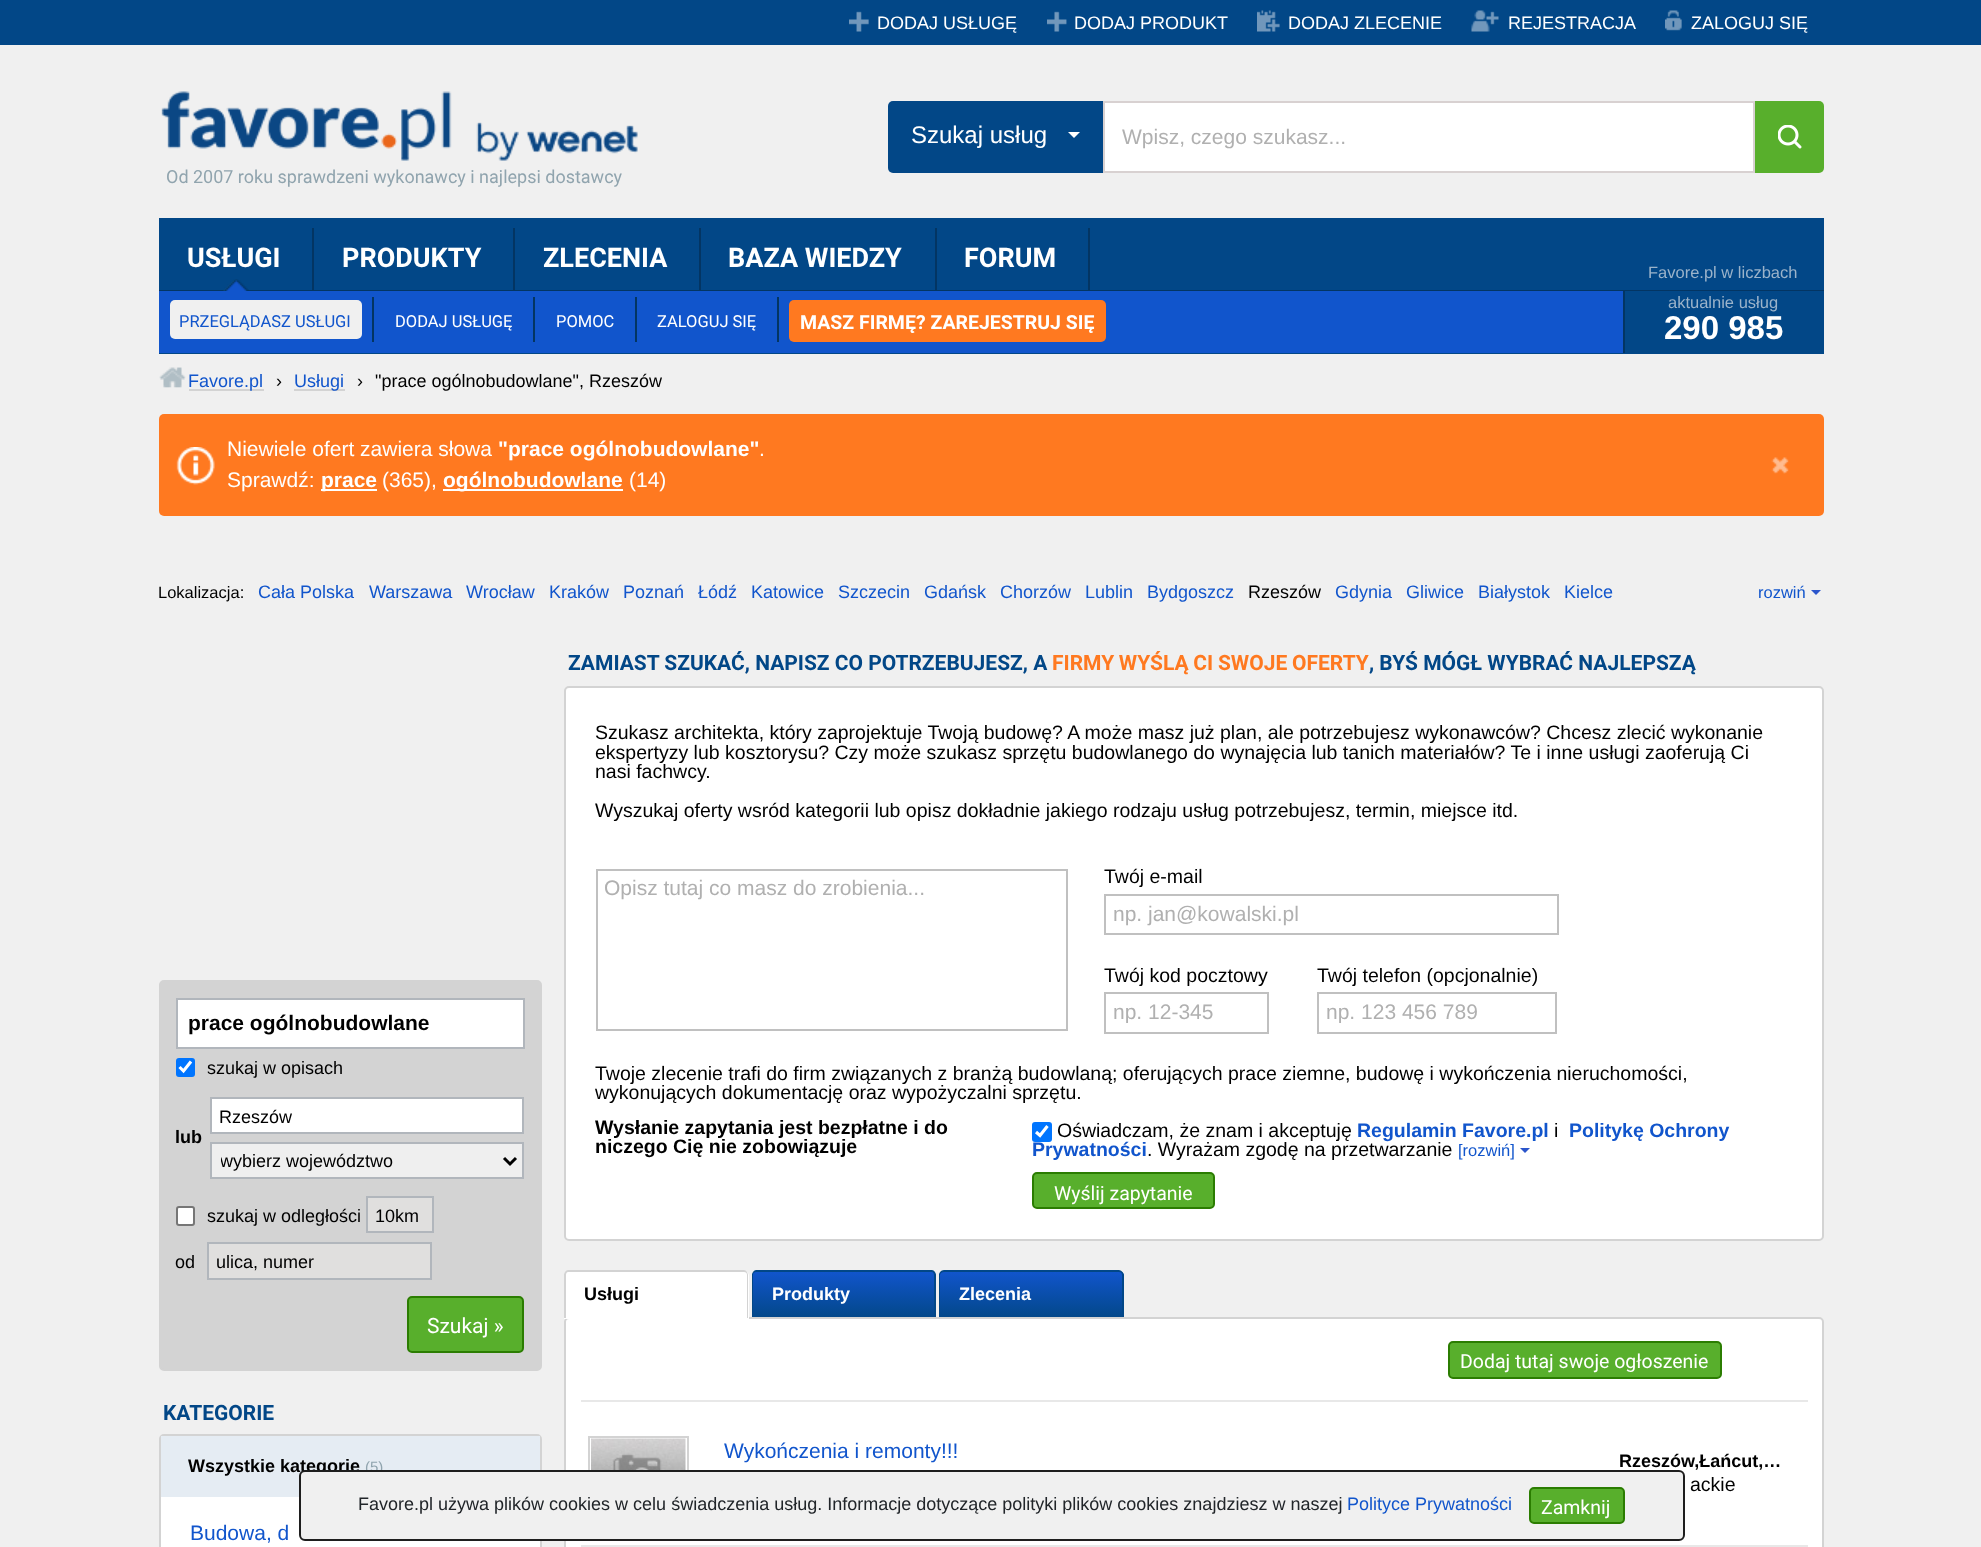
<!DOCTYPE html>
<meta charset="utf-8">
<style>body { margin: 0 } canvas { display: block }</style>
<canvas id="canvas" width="1981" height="1547"></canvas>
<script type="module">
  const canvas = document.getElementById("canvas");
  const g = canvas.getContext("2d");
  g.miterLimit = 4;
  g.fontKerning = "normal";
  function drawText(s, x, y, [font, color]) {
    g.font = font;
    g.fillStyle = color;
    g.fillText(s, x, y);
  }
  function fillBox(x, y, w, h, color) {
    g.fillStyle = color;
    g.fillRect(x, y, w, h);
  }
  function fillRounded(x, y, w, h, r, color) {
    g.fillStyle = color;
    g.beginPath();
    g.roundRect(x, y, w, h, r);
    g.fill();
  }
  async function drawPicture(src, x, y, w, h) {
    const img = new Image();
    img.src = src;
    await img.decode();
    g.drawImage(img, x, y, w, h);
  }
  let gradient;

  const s1 = ["18px Liberation Sans", "#FFFFFF"];
  const s2 = ["24px Liberation Sans", "#FFFFFF"];
  const s3 = ["21px Liberation Sans", "#B0B0B0"];
  const s4 = ["bold 27px Roboto", "#FFFFFF"];
  const s5 = ["16.5px Roboto", "#1155CC"];
  const s6 = ["16.5px Roboto", "#FFFFFF"];
  const s7 = ["bold 19.5px Roboto", "#FFFFFF"];
  const s8 = ["16.5px Liberation Sans", "#9BB3CA"];
  const s9 = ["bold 33px Liberation Sans", "#FFFFFF"];
  const s10 = ["18px Roboto", "#90A4AE"];
  const s11 = ["18px Liberation Sans", "#1155CC"];
  const s12 = ["18px Liberation Sans", "#000000"];
  const s13 = ["21px Liberation Sans", "#FFFFFF"];
  const s14 = ["bold 21px Liberation Sans", "#FFFFFF"];
  const s15 = ["16.5px Liberation Sans", "#000000"];
  const s16 = ["16.5px Liberation Sans", "#1155CC"];
  const s17 = ["bold 21px Liberation Sans", "#000000"];
  const s18 = ["bold 18px Liberation Sans", "#000000"];
  const s19 = ["21px Roboto", "#FFFFFF"];
  const s20 = ["bold 21px Roboto", "#024787"];
  const s21 = ["15px Liberation Sans", "#90A4AE"];
  const s22 = ["21px Liberation Sans", "#1155CC"];
  const s23 = ["bold 21px Roboto", "#FF7920"];
  const s24 = ["19.5px Liberation Sans", "#000000"];
  const s25 = ["bold 19.5px Liberation Sans", "#000000"];
  const s26 = ["bold 19.5px Liberation Sans", "#1155CC"];
  const s27 = ["19.5px Roboto", "#FFFFFF"];
  const s28 = ["bold 18px Liberation Sans", "#FFFFFF"];
  const s29 = ["18px Liberation Sans", "#212529"];

  fillBox(0, 0, 1981, 1547, "#F0F0F0");
  fillBox(0, 0, 1981, 45, "#024787");
  await drawPicture("pic1.png", 849, 11, 20, 21);
  drawText("DODAJ USŁUGĘ", 877, 29, s1);
  await drawPicture("pic2.png", 1047, 11, 20, 21);
  drawText("DODAJ PRODUKT", 1074, 29, s1);
  await drawPicture("pic3.png", 1257, 10, 23, 22);
  drawText("DODAJ ZLECENIE", 1288, 29, s1);
  await drawPicture("pic4.png", 1471, 10, 28, 22);
  drawText("REJESTRACJA", 1508, 29, s1);
  await drawPicture("pic5.png", 1665, 10, 17, 21);
  drawText("ZALOGUJ SIĘ", 1691, 29, s1);
  g.fillStyle = "#024787";
  g.beginPath();
  g.roundRect(888, 101, 216, 72, [5, 0, 0, 5]);
  g.fill();
  drawText("Szukaj usług", 911, 143, s2);
  g.beginPath();
  g.moveTo(1068, 132);
  g.lineTo(1080, 132);
  g.lineTo(1074, 138);
  g.closePath();
  g.fill();
  g.beginPath();
  g.rect(1104, 102, 650, 70);
  g.fill();
  g.strokeStyle = "#D8D1D1";
  g.lineWidth = 2;
  g.stroke();
  drawText("Wpisz, czego szukasz...", 1122, 144, s3);
  g.fillStyle = "#58AF2C";
  g.beginPath();
  g.roundRect(1755, 101, 69, 72, [0, 5, 5, 0]);
  g.fill();
  await drawPicture("pic6.png", 1778, 125, 24, 24);
  fillBox(159, 218, 1665, 136, "#024787");
  fillBox(159, 290, 1665, 1, "#033563");
  await drawPicture("pic7.png", 223, 279, 26, 12);
  fillBox(312, 228, 2, 63, "#033563");
  drawText("USŁUGI", 187, 267, s4);
  fillBox(159, 291, 1464, 62, "#1155CC");
  fillBox(372, 297, 2, 45, "#033563");
  fillRounded(170, 300, 192, 39, 5, "#F0F0F0");
  drawText("PRZEGLĄDASZ USŁUGI", 179, 327, s5);
  fillBox(533, 297, 2, 45, "#033563");
  drawText("DODAJ USŁUGĘ", 395, 327, s6);
  fillBox(635, 297, 2, 45, "#033563");
  drawText("POMOC", 556, 327, s6);
  fillBox(777, 297, 2, 45, "#033563");
  drawText("ZALOGUJ SIĘ", 657, 327, s6);
  fillRounded(789, 300, 317, 42, 5, "#FF7920");
  drawText("MASZ FIRMĘ? ZAREJESTRUJ SIĘ", 800, 329, s7);
  drawText("Favore.pl w liczbach", 1648, 278, s8);
  fillBox(1623, 291, 2, 62, "#033563");
  drawText("aktualnie usług", 1668, 308, s8);
  drawText("290 985", 1664, 339, s9);
  fillBox(513, 228, 2, 63, "#033563");
  drawText("PRODUKTY", 342, 267, s4);
  fillBox(699, 228, 2, 63, "#033563");
  drawText("ZLECENIA", 543, 267, s4);
  fillBox(935, 228, 2, 63, "#033563");
  drawText("BAZA WIEDZY", 728, 267, s4);
  fillBox(1088, 228, 2, 63, "#033563");
  drawText("FORUM", 964, 267, s4);
  await drawPicture("pic8.png", 161, 91, 477, 70);
  drawText("Od 2007 roku sprawdzeni wykonawcy i najlepsi dostawcy", 166, 183, s10);
  await drawPicture("pic9.png", 159, 367, 27, 21);
  fillBox(189, 389, 75, 2, "#D3D3D3");
  drawText("Favore.pl", 188, 387, s11);
  drawText("›", 276, 387, s12);
  fillBox(294, 389, 51, 2, "#D3D3D3");
  drawText("Usługi", 294, 387, s11);
  drawText("›", 357, 387, s12);
  drawText("\"prace ogólnobudowlane\", Rzeszów", 375, 387, s12);
  fillRounded(159, 414, 1665, 102, 5, "#FF7920");
  await drawPicture("pic10.png", 176, 447, 39, 38);
  drawText("Niewiele ofert zawiera słowa", 227, 456, s13);
  drawText("\"prace ogólnobudowlane\"", 498, 456, s14);
  drawText(".", 759, 456, s13);
  await drawPicture("pic11.png", 1771, 457, 18, 17);
  drawText("Sprawdź:", 227, 487, s13);
  fillBox(321, 489, 56, 2, "#FFFFFF");
  drawText("prace", 321, 487, s14);
  drawText("(365),", 382, 487, s13);
  fillBox(443, 489, 180, 2, "#FFFFFF");
  drawText("ogólnobudowlane", 443, 487, s14);
  drawText("(14)", 629, 487, s13);
  drawText("Lokalizacja:", 158, 598, s15);
  drawText("Cała Polska", 258, 598, s11);
  drawText("Warszawa", 369, 598, s11);
  drawText("Wrocław", 466, 598, s11);
  drawText("Kraków", 549, 598, s11);
  drawText("Poznań", 623, 598, s11);
  drawText("Łódź", 698, 598, s11);
  drawText("Katowice", 751, 598, s11);
  drawText("Szczecin", 838, 598, s11);
  drawText("Gdańsk", 924, 598, s11);
  drawText("Chorzów", 1000, 598, s11);
  drawText("Lublin", 1085, 598, s11);
  drawText("Bydgoszcz", 1147, 598, s11);
  drawText("Rzeszów", 1248, 598, s12);
  drawText("Gdynia", 1335, 598, s11);
  drawText("Gliwice", 1406, 598, s11);
  drawText("Białystok", 1478, 598, s11);
  drawText("Kielce", 1564, 598, s11);
  drawText("rozwiń", 1758, 598, s16);
  g.fillStyle = "#2B55CB";
  g.beginPath();
  g.moveTo(1811, 590);
  g.lineTo(1816, 595);
  g.lineTo(1821, 590);
  g.closePath();
  g.fill();
  g.fillStyle = "#D3D3D3";
  g.beginPath();
  g.roundRect(160, 981, 381, 389, 4);
  g.fill();
  g.strokeStyle = "#D3D3D3";
  g.stroke();
  g.fillStyle = "#FFFFFF";
  g.beginPath();
  g.rect(177, 999, 347, 49);
  g.fill();
  g.strokeStyle = "#B1B6BC";
  g.stroke();
  drawText("prace ogólnobudowlane", 188, 1030, s17);
  fillRounded(176, 1058, 19, 19, 3, "#0075FF");
  g.beginPath();
  g.moveTo(179.5, 1067);
  g.lineTo(183.5, 1071);
  g.lineTo(191, 1061.5);
  g.strokeStyle = "#FFFFFF";
  g.lineWidth = 3.1;
  g.stroke();
  drawText("szukaj w opisach", 207, 1074, s12);
  drawText("lub", 175, 1143, s18);
  g.fillStyle = "#FFFFFF";
  g.beginPath();
  g.rect(211, 1098, 312, 35);
  g.fill();
  g.strokeStyle = "#B1B6BC";
  g.lineWidth = 2;
  g.stroke();
  drawText("Rzeszów", 219, 1123, s12);
  g.fillStyle = "#EFEFEF";
  g.beginPath();
  g.rect(211, 1143, 312, 35);
  g.fill();
  g.stroke();
  g.beginPath();
  g.moveTo(504, 1158);
  g.lineTo(510, 1164);
  g.lineTo(516, 1158);
  g.strokeStyle = "#000000";
  g.lineWidth = 3;
  g.stroke();
  g.save();
  g.beginPath();
  g.rect(221, 1149, 274, 24);
  g.clip();
  drawText("wybierz województwo", 220, 1167, s12);
  g.restore();
  g.fillStyle = "#FFFFFF";
  g.beginPath();
  g.roundRect(177, 1207, 17, 18, 2);
  g.fill();
  g.strokeStyle = "#767676";
  g.lineWidth = 2;
  g.stroke();
  drawText("szukaj w odległości", 207, 1222, s12);
  g.fillStyle = "#E0DFDE";
  g.beginPath();
  g.rect(367, 1197, 66, 35);
  g.fill();
  g.strokeStyle = "#B1B6BC";
  g.stroke();
  drawText("10km", 375, 1222, s12);
  drawText("od", 175, 1268, s12);
  g.fillStyle = "#E0DFDE";
  g.beginPath();
  g.rect(208, 1243, 223, 36);
  g.fill();
  g.stroke();
  drawText("ulica, numer", 216, 1268, s12);
  g.fillStyle = "#58AF2C";
  g.beginPath();
  g.roundRect(408, 1297, 115, 55, 4);
  g.fill();
  g.strokeStyle = "#2B7D01";
  g.stroke();
  drawText("Szukaj »", 427, 1333, s19);
  drawText("KATEGORIE", 163, 1420, s20);
  g.fillStyle = "#FFFFFF";
  g.beginPath();
  g.roundRect(160, 1435, 381, 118, 4);
  g.fill();
  g.strokeStyle = "#D3D3D3";
  g.stroke();
  fillBox(161, 1436, 379, 61, "#E5ECF3");
  drawText("Wszystkie kategorie", 188, 1472, s18);
  drawText("(5)", 365, 1472, s21);
  drawText("Budowa, d", 190, 1540, s22);
  drawText("ZAMIAST SZUKAĆ, NAPISZ CO POTRZEBUJESZ, A", 568, 670, s20);
  g.wordSpacing = "-0.5px";
  drawText("FIRMY WYŚLĄ CI SWOJE OFERTY", 1052, 670, s23);
  g.wordSpacing = "0px";
  drawText(", BYŚ MÓGŁ WYBRAĆ NAJLEPSZĄ", 1369, 670, s20);
  g.fillStyle = "#FFFFFF";
  g.beginPath();
  g.roundRect(565, 687, 1258, 553, 4);
  g.fill();
  g.stroke();
  drawText("Szukasz architekta, który zaprojektuje Twoją budowę? A może masz już plan, ale potrzebujesz wykonawców? Chcesz zlecić wykonanie", 595, 739, s24);
  drawText("ekspertyzy lub kosztorysu? Czy może szukasz sprzętu budowlanego do wynajęcia lub tanich materiałów? Te i inne usługi zaoferują Ci", 595, 759, s24);
  drawText("nasi fachwcy.", 595, 778, s24);
  drawText("Wyszukaj oferty wsród kategorii lub opisz dokładnie jakiego rodzaju usług potrzebujesz, termin, miejsce itd.", 595, 817, s24);
  g.strokeStyle = "#C0C0C0";
  g.strokeRect(597, 870, 470, 160);
  drawText("Opisz tutaj co masz do zrobienia...", 604, 895, s3);
  drawText("Twój e-mail", 1104, 883, s24);
  g.strokeRect(1105, 895, 453, 39);
  drawText("np. jan@kowalski.pl", 1113, 921, s3);
  drawText("Twój kod pocztowy", 1104, 982, s24);
  g.strokeRect(1105, 993, 163, 40);
  g.save();
  g.beginPath();
  g.rect(1113, 999, 147, 24);
  g.clip();
  drawText("np. 12-345", 1113, 1019, s3);
  g.restore();
  drawText("Twój telefon (opcjonalnie)", 1317, 982, s24);
  g.strokeRect(1318, 993, 238, 40);
  g.save();
  g.beginPath();
  g.rect(1326, 999, 222, 24);
  g.clip();
  drawText("np. 123 456 789", 1326, 1019, s3);
  g.restore();
  drawText("Twoje zlecenie trafi do firm związanych z branżą budowlaną; oferujących prace ziemne, budowę i wykończenia nieruchomości,", 595, 1080, s24);
  drawText("wykonujących dokumentację oraz wypożyczalni sprzętu.", 595, 1099, s24);
  drawText("Wysłanie zapytania jest bezpłatne i do", 595, 1134, s25);
  drawText("niczego Cię nie zobowiązuje", 595, 1153, s25);
  drawText("Prywatności", 1032, 1156, s26);
  fillRounded(1032, 1122, 20, 20, 3, "#0075FF");
  g.beginPath();
  g.moveTo(1036, 1132);
  g.lineTo(1040, 1135.5);
  g.lineTo(1047.5, 1126);
  g.strokeStyle = "#FFFFFF";
  g.lineWidth = 3.1;
  g.stroke();
  drawText("Oświadczam, że znam i akceptuję", 1057, 1137, s24);
  drawText("Regulamin Favore.pl", 1357, 1137, s26);
  drawText("i", 1554, 1137, s24);
  drawText("Politykę Ochrony", 1569, 1137, s26);
  drawText(". Wyrażam zgodę na przetwarzanie", 1147, 1156, s24);
  drawText("[rozwiń]", 1458, 1156, s16);
  g.fillStyle = "#2B55CB";
  g.beginPath();
  g.moveTo(1520, 1148);
  g.lineTo(1525, 1153);
  g.lineTo(1530, 1148);
  g.closePath();
  g.fill();
  g.fillStyle = "#58AF2C";
  g.beginPath();
  g.roundRect(1033, 1173, 181, 35, 4);
  g.fill();
  g.strokeStyle = "#2B7D01";
  g.lineWidth = 2;
  g.stroke();
  drawText("Wyślij zapytanie", 1054, 1200, s27);
  g.save();
  g.beginPath();
  g.roundRect(752, 1271, 184, 48, [5, 5, 0, 0]);
  g.clip();
  gradient = g.createLinearGradient(844, 1272, 844, 1319);
  gradient.addColorStop(0, "#1155CC");
  gradient.addColorStop(1, "#024787");
  g.fillStyle = gradient;
  g.fillRect(752, 1272, 184, 45);
  g.restore();
  g.fillStyle = "#024787";
  g.beginPath();
  g.moveTo(756, 1270);
  g.lineTo(932, 1270);
  g.bezierCurveTo(934, 1270, 936, 1273, 936, 1275);
  g.lineTo(936, 1318);
  g.lineTo(752, 1318);
  g.lineTo(752, 1275);
  g.bezierCurveTo(752, 1273, 754, 1270, 756, 1270);
  g.closePath();
  g.moveTo(756, 1272);
  g.lineTo(932, 1272);
  g.bezierCurveTo(933, 1272, 934, 1273, 934, 1275);
  g.lineTo(934, 1318);
  g.lineTo(753, 1318);
  g.lineTo(753, 1275);
  g.bezierCurveTo(753, 1273, 754, 1272, 756, 1272);
  g.closePath();
  g.fill("evenodd");
  g.save();
  g.beginPath();
  g.roundRect(939, 1271, 185, 48, [5, 5, 0, 0]);
  g.clip();
  gradient = g.createLinearGradient(1031, 1272, 1031, 1319);
  gradient.addColorStop(0, "#1155CC");
  gradient.addColorStop(1, "#024787");
  g.fillStyle = gradient;
  g.fillRect(939, 1272, 185, 45);
  g.restore();
  g.beginPath();
  g.moveTo(944, 1270);
  g.lineTo(1119, 1270);
  g.bezierCurveTo(1121, 1270, 1124, 1273, 1124, 1275);
  g.lineTo(1124, 1318);
  g.lineTo(939, 1318);
  g.lineTo(939, 1275);
  g.bezierCurveTo(939, 1273, 941, 1270, 944, 1270);
  g.closePath();
  g.moveTo(944, 1272);
  g.lineTo(1119, 1272);
  g.bezierCurveTo(1121, 1272, 1122, 1273, 1122, 1275);
  g.lineTo(1122, 1318);
  g.lineTo(940, 1318);
  g.lineTo(940, 1275);
  g.bezierCurveTo(940, 1273, 942, 1272, 944, 1272);
  g.closePath();
  g.fill("evenodd");
  g.fillStyle = "#FFFFFF";
  g.beginPath();
  g.roundRect(565, 1318, 1258, 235, 4);
  g.fill();
  g.strokeStyle = "#D3D3D3";
  g.stroke();
  g.beginPath();
  g.roundRect(564, 1271, 185, 48, [5, 5, 0, 0]);
  g.fill();
  g.fillStyle = "#D3D3D3";
  g.beginPath();
  g.moveTo(568, 1270);
  g.lineTo(744, 1270);
  g.bezierCurveTo(746, 1270, 748, 1273, 748, 1275);
  g.lineTo(748, 1318);
  g.lineTo(564, 1318);
  g.lineTo(564, 1275);
  g.bezierCurveTo(564, 1273, 566, 1270, 568, 1270);
  g.closePath();
  g.moveTo(568, 1272);
  g.lineTo(744, 1272);
  g.bezierCurveTo(746, 1272, 747, 1273, 747, 1275);
  g.lineTo(747, 1318);
  g.lineTo(566, 1318);
  g.lineTo(566, 1275);
  g.bezierCurveTo(566, 1273, 567, 1272, 568, 1272);
  g.closePath();
  g.fill("evenodd");
  drawText("Usługi", 584, 1300, s18);
  drawText("Produkty", 772, 1300, s28);
  drawText("Zlecenia", 959, 1300, s28);
  fillBox(581, 1400, 1227, 2, "#E8E8E8");
  g.fillStyle = "#58AF2C";
  g.beginPath();
  g.roundRect(1449, 1342, 272, 36, 4);
  g.fill();
  g.strokeStyle = "#2B7D01";
  g.stroke();
  drawText("Dodaj tutaj swoje ogłoszenie", 1460, 1368, s27);
  fillBox(581, 1545, 1227, 2, "#E8E8E8");
  g.strokeStyle = "#D3D3D3";
  g.strokeRect(589, 1437, 99, 73);
  await drawPicture("pic12.png", 591, 1438, 95, 32);
  drawText("Wykończenia i remonty!!!", 724, 1458, s22);
  drawText("Rzeszów,Łańcut,…", 1619, 1467, s18);
  drawText("ackie", 1690, 1491, s24);
  g.fillStyle = "#F0F0F0";
  g.beginPath();
  g.roundRect(300, 1471, 1384, 69, 5);
  g.fill();
  g.strokeStyle = "#1E1E1E";
  g.stroke();
  drawText("Favore.pl używa plików cookies w celu świadczenia usług. Informacje dotyczące polityki plików cookies znajdziesz w naszej", 358, 1510, s29);
  drawText("Polityce Prywatności", 1347, 1510, s11);
  g.fillStyle = "#58AF2C";
  g.beginPath();
  g.roundRect(1530, 1488, 94, 35, 4);
  g.fill();
  g.strokeStyle = "#2B7D01";
  g.stroke();
  drawText("Zamknij", 1541, 1514, s27);
</script>
